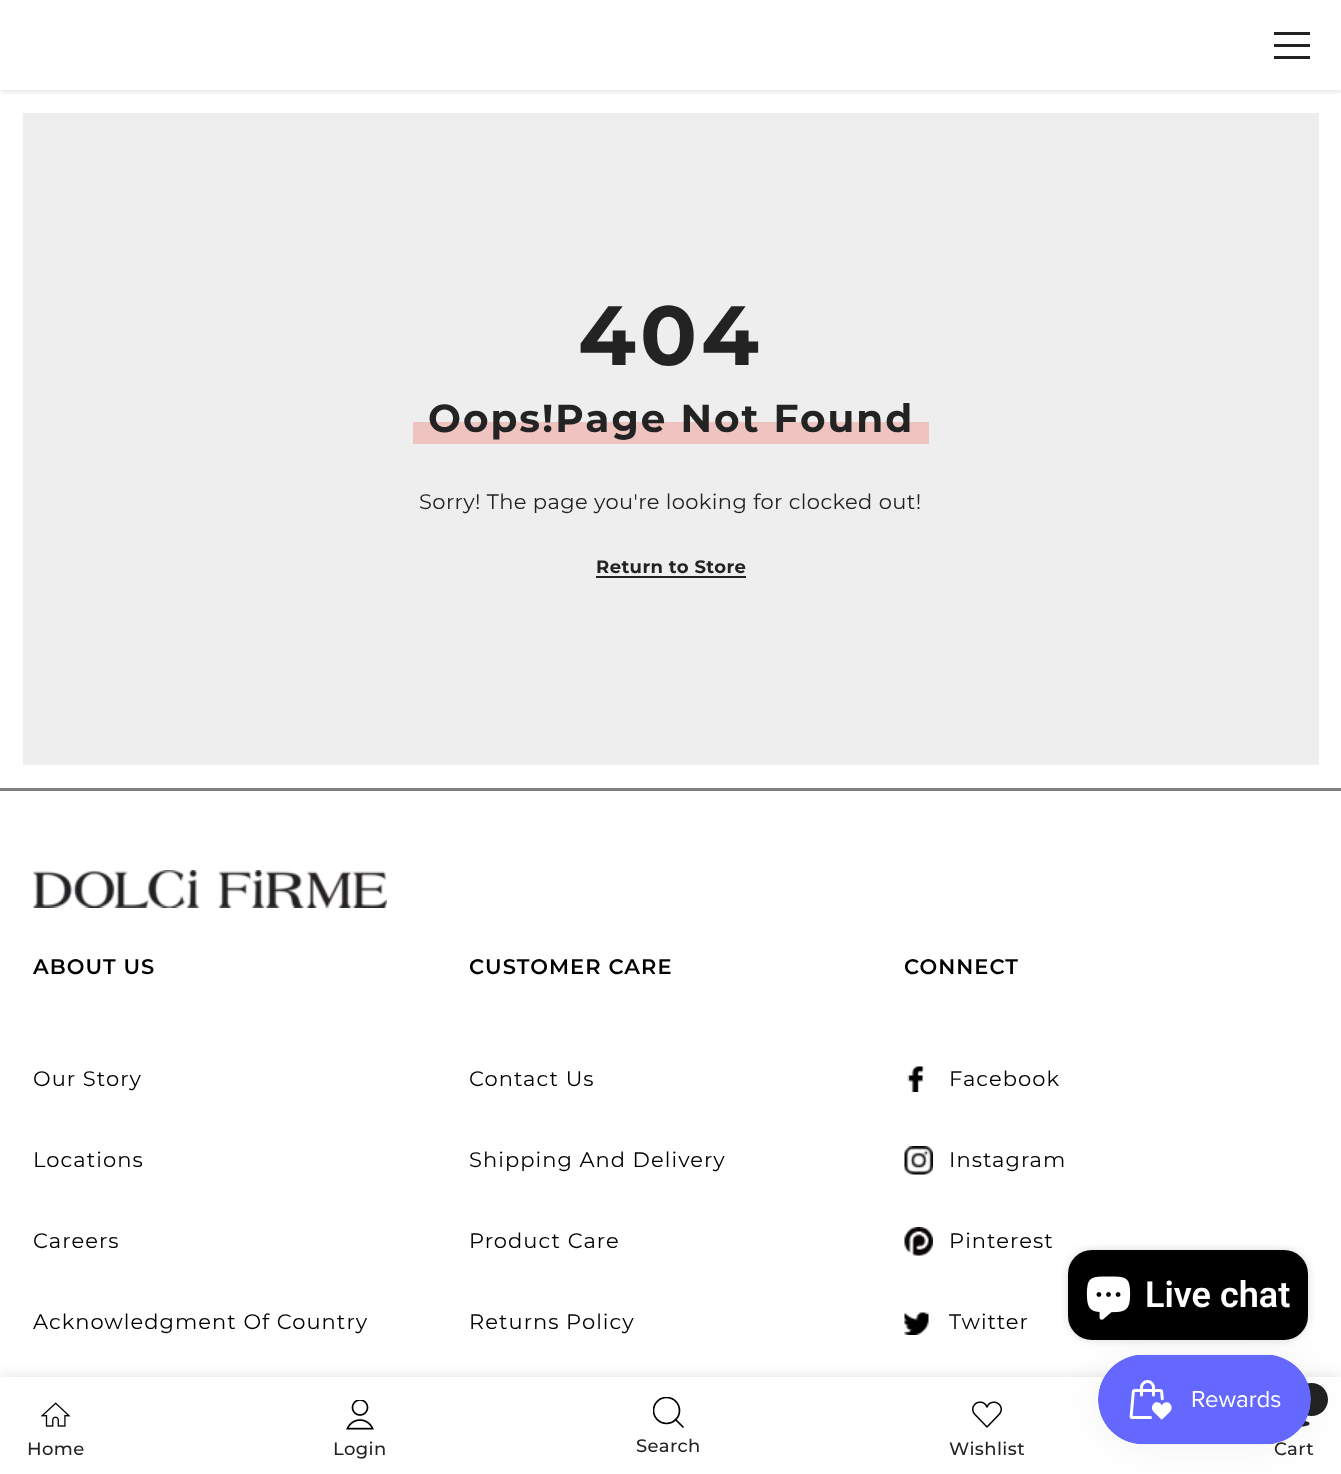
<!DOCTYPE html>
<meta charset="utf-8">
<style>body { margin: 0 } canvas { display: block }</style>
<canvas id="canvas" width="1341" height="1474"></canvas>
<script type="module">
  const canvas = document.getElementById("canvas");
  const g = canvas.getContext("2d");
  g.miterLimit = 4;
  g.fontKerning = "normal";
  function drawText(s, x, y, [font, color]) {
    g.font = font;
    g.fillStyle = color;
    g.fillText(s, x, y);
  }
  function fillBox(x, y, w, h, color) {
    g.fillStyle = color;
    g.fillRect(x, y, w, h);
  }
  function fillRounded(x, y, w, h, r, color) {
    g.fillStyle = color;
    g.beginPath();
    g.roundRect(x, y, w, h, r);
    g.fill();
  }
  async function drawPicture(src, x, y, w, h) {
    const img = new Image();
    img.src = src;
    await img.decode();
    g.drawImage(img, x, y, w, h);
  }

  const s1 = ["bold 84px Montserrat", "#232323"];
  const s2 = ["bold 39px Montserrat", "#232323"];
  const s3 = ["21px Montserrat", "#232323"];
  const s4 = ["bold 18px Montserrat", "#232323"];
  const s5 = ["600 21px Montserrat", "#000000"];
  const s6 = ["21px Montserrat", "#000000"];
  const s7 = ["500 18px Montserrat", "#232323"];
  const s8 = ["600 36px Roboto", "#FFFFFF"];

  fillBox(0, 0, 1341, 1474, "#FFFFFF");
  g.save();
  g.beginPath();
  g.rect(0, 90, 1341, 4);
  g.clip();
  g.fillStyle = "rgba(0, 0, 0, 0.1)";
  g.filter = "blur(2px)";
  g.beginPath();
  g.rect(0, 2, 1341, 90);
  g.fill();
  g.filter = "none";
  g.restore();
  fillBox(1274, 44, 36, 3, "#232323");
  fillBox(1274, 32, 36, 3, "#232323");
  fillBox(1274, 56, 36, 3, "#232323");
  fillBox(23, 113, 1296, 652, "#EEEEEE");
  g.letterSpacing = "4px";
  drawText("404", 578, 365, s1);
  fillBox(413, 422, 516, 22, "#EFC3C0");
  g.letterSpacing = "2px";
  drawText("Oops!Page Not Found", 428, 432, s2);
  g.letterSpacing = "0.4px";
  drawText("Sorry! The page you're looking for clocked out!", 419, 509, s3);
  drawText("Return to Store", 596, 573, s4);
  fillBox(596, 576, 150, 2, "#232323");
  fillBox(0, 788, 1341, 3, "#808080");
  await drawPicture("pic1.png", 33, 870, 354, 38);
  g.letterSpacing = "1.05px";
  drawText("ABOUT US", 33, 974, s5);
  drawText("Our Story", 33, 1086, s6);
  drawText("Locations", 33, 1167, s6);
  drawText("Careers", 33, 1248, s6);
  drawText("Acknowledgment Of Country", 33, 1329, s6);
  drawText("CUSTOMER CARE", 469, 974, s5);
  drawText("Contact Us", 469, 1086, s6);
  drawText("Shipping And Delivery", 469, 1167, s6);
  drawText("Product Care", 469, 1248, s6);
  drawText("Returns Policy", 469, 1329, s6);
  drawText("CONNECT", 904, 974, s5);
  await drawPicture("pic2.png", 907, 1066, 18, 26);
  drawText("Facebook", 949, 1086, s6);
  await drawPicture("pic3.png", 904, 1146, 29, 29);
  drawText("Instagram", 949, 1167, s6);
  await drawPicture("pic4.png", 904, 1227, 29, 29);
  drawText("Pinterest", 949, 1248, s6);
  await drawPicture("pic5.png", 904, 1312, 25, 23);
  drawText("Twitter", 949, 1329, s6);
  g.fillStyle = "rgba(0, 0, 0, 0.12)";
  g.filter = "blur(7px)";
  g.beginPath();
  g.rect(0, 1377, 1341, 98);
  g.fill();
  g.filter = "none";
  fillBox(0, 1377, 1341, 97, "#FFFFFF");
  await drawPicture("pic6.png", 41, 1402, 30, 25);
  g.letterSpacing = "0.4px";
  drawText("Home", 27, 1455, s7);
  await drawPicture("pic7.png", 346, 1400, 28, 30);
  drawText("Login", 333, 1455, s7);
  g.save();
  g.beginPath();
  g.rect(653, 1397, 31, 31);
  g.clip();
  g.beginPath();
  g.arc(666.5, 1410.5, 13, 0, Math.PI * 2);
  g.strokeStyle = "#000000";
  g.lineWidth = 1.7;
  g.stroke();
  g.restore();
  g.beginPath();
  g.moveTo(675, 1419);
  g.lineTo(683.5, 1427.5);
  g.strokeStyle = "#000000";
  g.lineWidth = 1.7;
  g.stroke();
  drawText("Search", 636, 1452, s7);
  await drawPicture("pic8.png", 972, 1401, 30, 27);
  drawText("Wishlist", 949, 1455, s7);
  g.beginPath();
  g.arc(1311.5, 1399.5, 16.5, 0, Math.PI * 2);
  g.fill();
  await drawPicture("pic9.png", 1301, 1421, 9, 6);
  drawText("Cart", 1274, 1455, s7);
  g.fillStyle = "rgba(0, 0, 0, 0.15)";
  g.filter = "blur(4px)";
  g.beginPath();
  g.roundRect(1068, 1250, 240, 90, 24);
  g.fill();
  g.filter = "none";
  fillRounded(1068, 1250, 240, 90, 24, "#000000");
  await drawPicture("pic10.png", 1086, 1276, 45, 44);
  g.letterSpacing = "0px";
  drawText("Live chat", 1145, 1307, s8);
  g.fillStyle = "rgba(0, 0, 0, 0.05)";
  g.filter = "blur(19px)";
  g.beginPath();
  g.roundRect(1098, 1355, 213, 90, 45);
  g.fill();
  g.filter = "none";
  await drawPicture("pic11.png", 1098, 1354, 213, 91);
</script>
